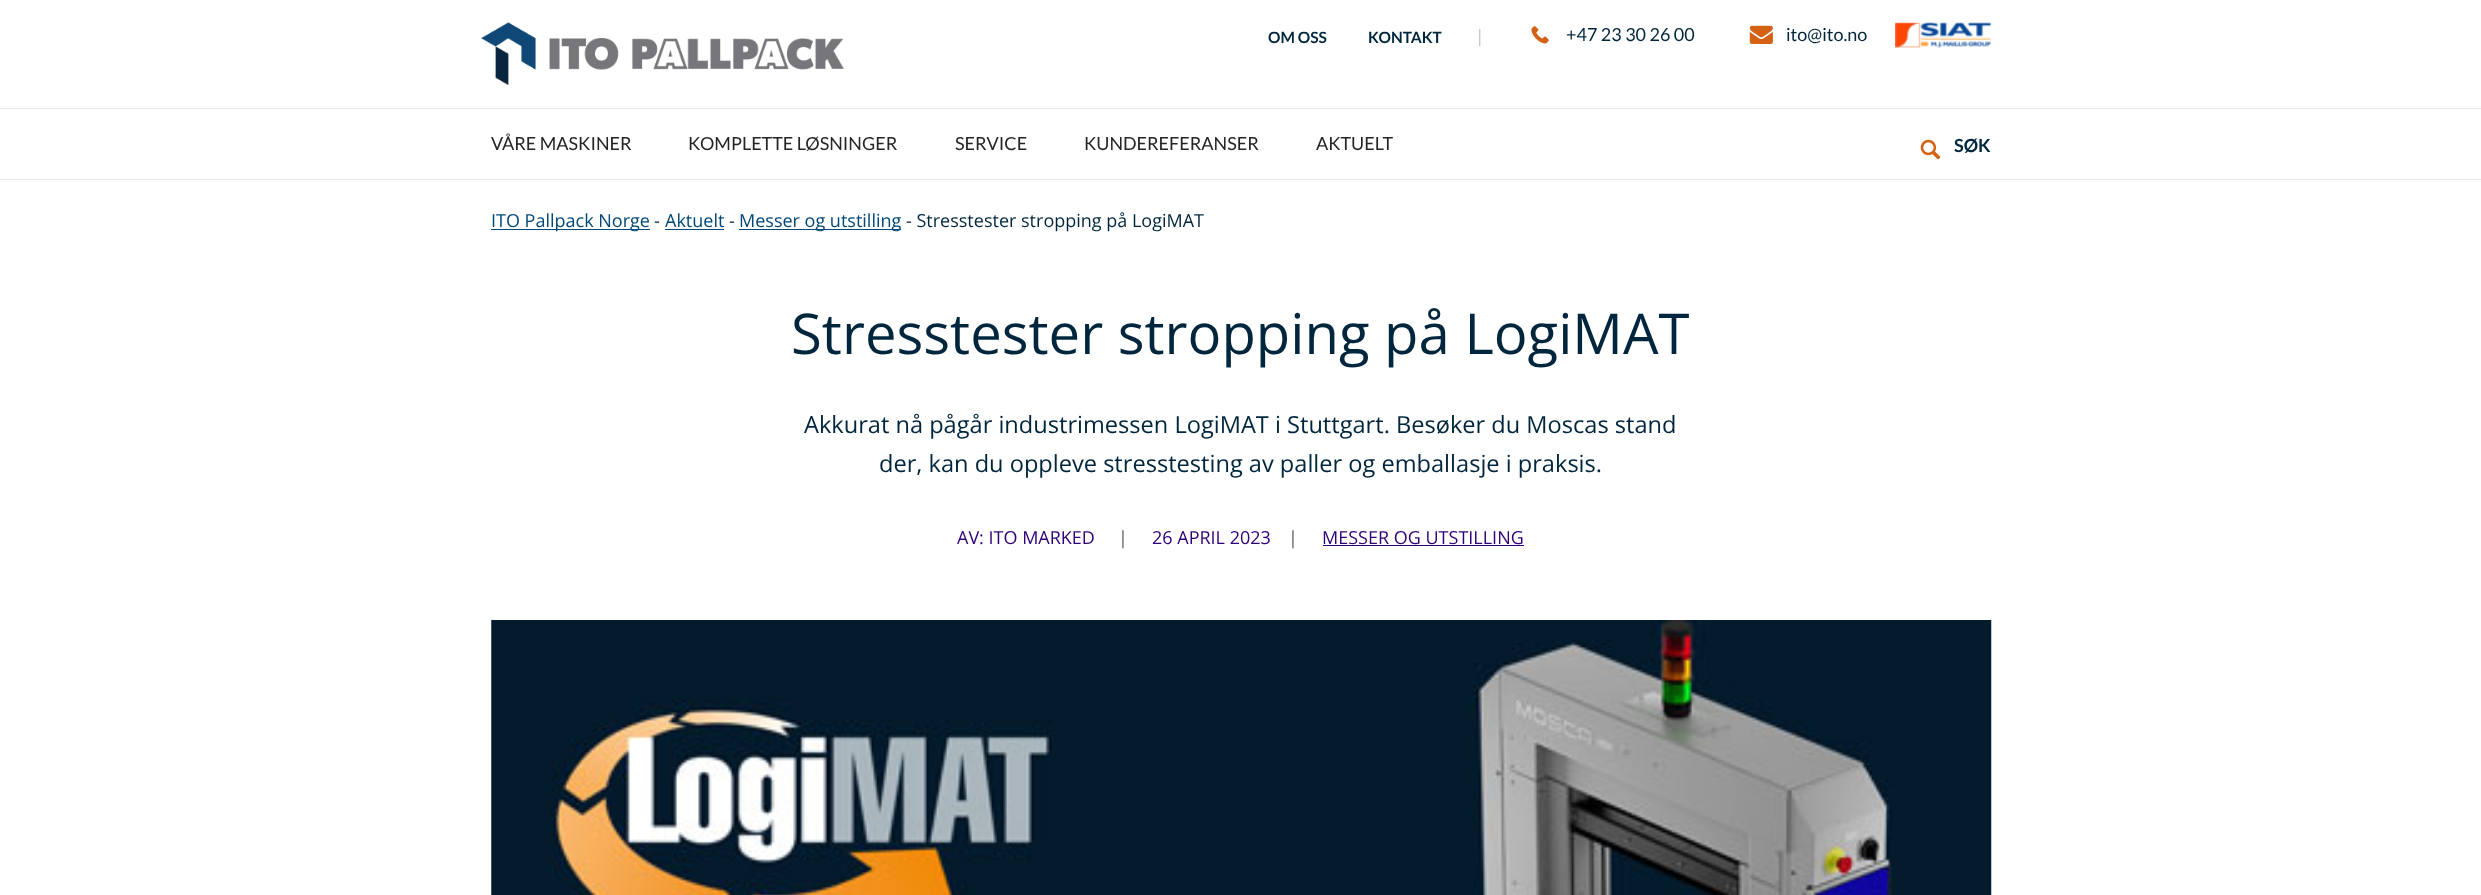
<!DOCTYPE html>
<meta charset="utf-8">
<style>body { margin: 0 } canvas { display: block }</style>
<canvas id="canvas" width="2481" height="895"></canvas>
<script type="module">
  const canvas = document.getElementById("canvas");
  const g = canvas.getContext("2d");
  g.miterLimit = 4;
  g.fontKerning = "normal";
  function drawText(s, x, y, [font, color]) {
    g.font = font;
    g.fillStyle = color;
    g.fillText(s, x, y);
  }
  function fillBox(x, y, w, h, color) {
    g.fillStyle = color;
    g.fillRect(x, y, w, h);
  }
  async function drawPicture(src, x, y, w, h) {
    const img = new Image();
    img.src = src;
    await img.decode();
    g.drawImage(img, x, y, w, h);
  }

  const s1 = ["bold 15.5px Lato", "#00263D"];
  const s2 = ["18px Lato", "#C4C4C4"];
  const s3 = ["18px Lato", "#00263D"];
  const s4 = ["18px Lato", "#252525"];
  const s5 = ["bold 18px Lato", "#00263D"];
  const s6 = ["18px Open Sans", "#004876"];
  const s7 = ["18px Open Sans", "#00263D"];
  const s8 = ["56.25px Open Sans", "#00263D"];
  const s9 = ["23.6px Open Sans", "#00263D"];
  const s10 = ["18px Open Sans", "#2F0076"];
  const s11 = ["18px Open Sans", "#575757"];

  fillBox(0, 0, 2481, 895, "#FFFFFF");
  fillBox(0, 179, 2481, 1, "#E7E7E7");
  fillBox(0, 108, 2481, 1, "#E7E7E7");
  await drawPicture("pic1.png", 481, 22, 363, 63);
  drawText("OM OSS", 1268, 43, s1);
  drawText("KONTAKT", 1368, 43, s1);
  drawText("|", 1477, 43, s2);
  await drawPicture("pic2.png", 1531, 26, 18, 18);
  drawText("+47 23 30 26 00", 1566, 41, s3);
  await drawPicture("pic3.png", 1749, 25, 24, 19);
  drawText("ito@ito.no", 1786, 41, s3);
  await drawPicture("pic4.png", 1895, 22, 97, 26);
  drawText("VÅRE MASKINER", 491, 150, s4);
  drawText("KOMPLETTE LØSNINGER", 688, 150, s4);
  drawText("SERVICE", 955, 150, s4);
  drawText("KUNDEREFERANSER", 1084, 150, s4);
  drawText("AKTUELT", 1316, 150, s4);
  await drawPicture("pic5.png", 1920, 139, 21, 21);
  drawText("SØK", 1954, 152, s5);
  fillBox(491, 229, 159, 1, "#004876");
  drawText("ITO Pallpack Norge", 491, 227, s6);
  drawText("-", 654, 227, s7);
  drawText("Aktuelt", 665, 227, s6);
  fillBox(665, 229, 59, 1, "#004876");
  drawText("-", 729, 227, s7);
  fillBox(739, 229, 162, 1, "#004876");
  drawText("Messer og utstilling", 739, 227, s6);
  drawText("- Stresstester stropping på LogiMAT", 906, 227, s7);
  drawText("Stresstester stropping på LogiMAT", 791, 354, s8);
  drawText("Akkurat nå pågår industrimessen LogiMAT i Stuttgart. Besøker du Moscas stand", 804, 433, s9);
  drawText("der, kan du oppleve stresstesting av paller og emballasje i praksis.", 879, 472, s9);
  drawText("AV: ITO MARKED", 957, 544, s10);
  drawText("|", 1118, 544, s11);
  drawText("26 APRIL 2023", 1152, 544, s10);
  drawText("|", 1288, 544, s11);
  drawText("MESSER OG UTSTILLING", 1322, 544, s10);
  fillBox(1323, 545, 201, 1, "#2F0076");
  await drawPicture("pic6.png", 491, 620, 1501, 275);
</script>
